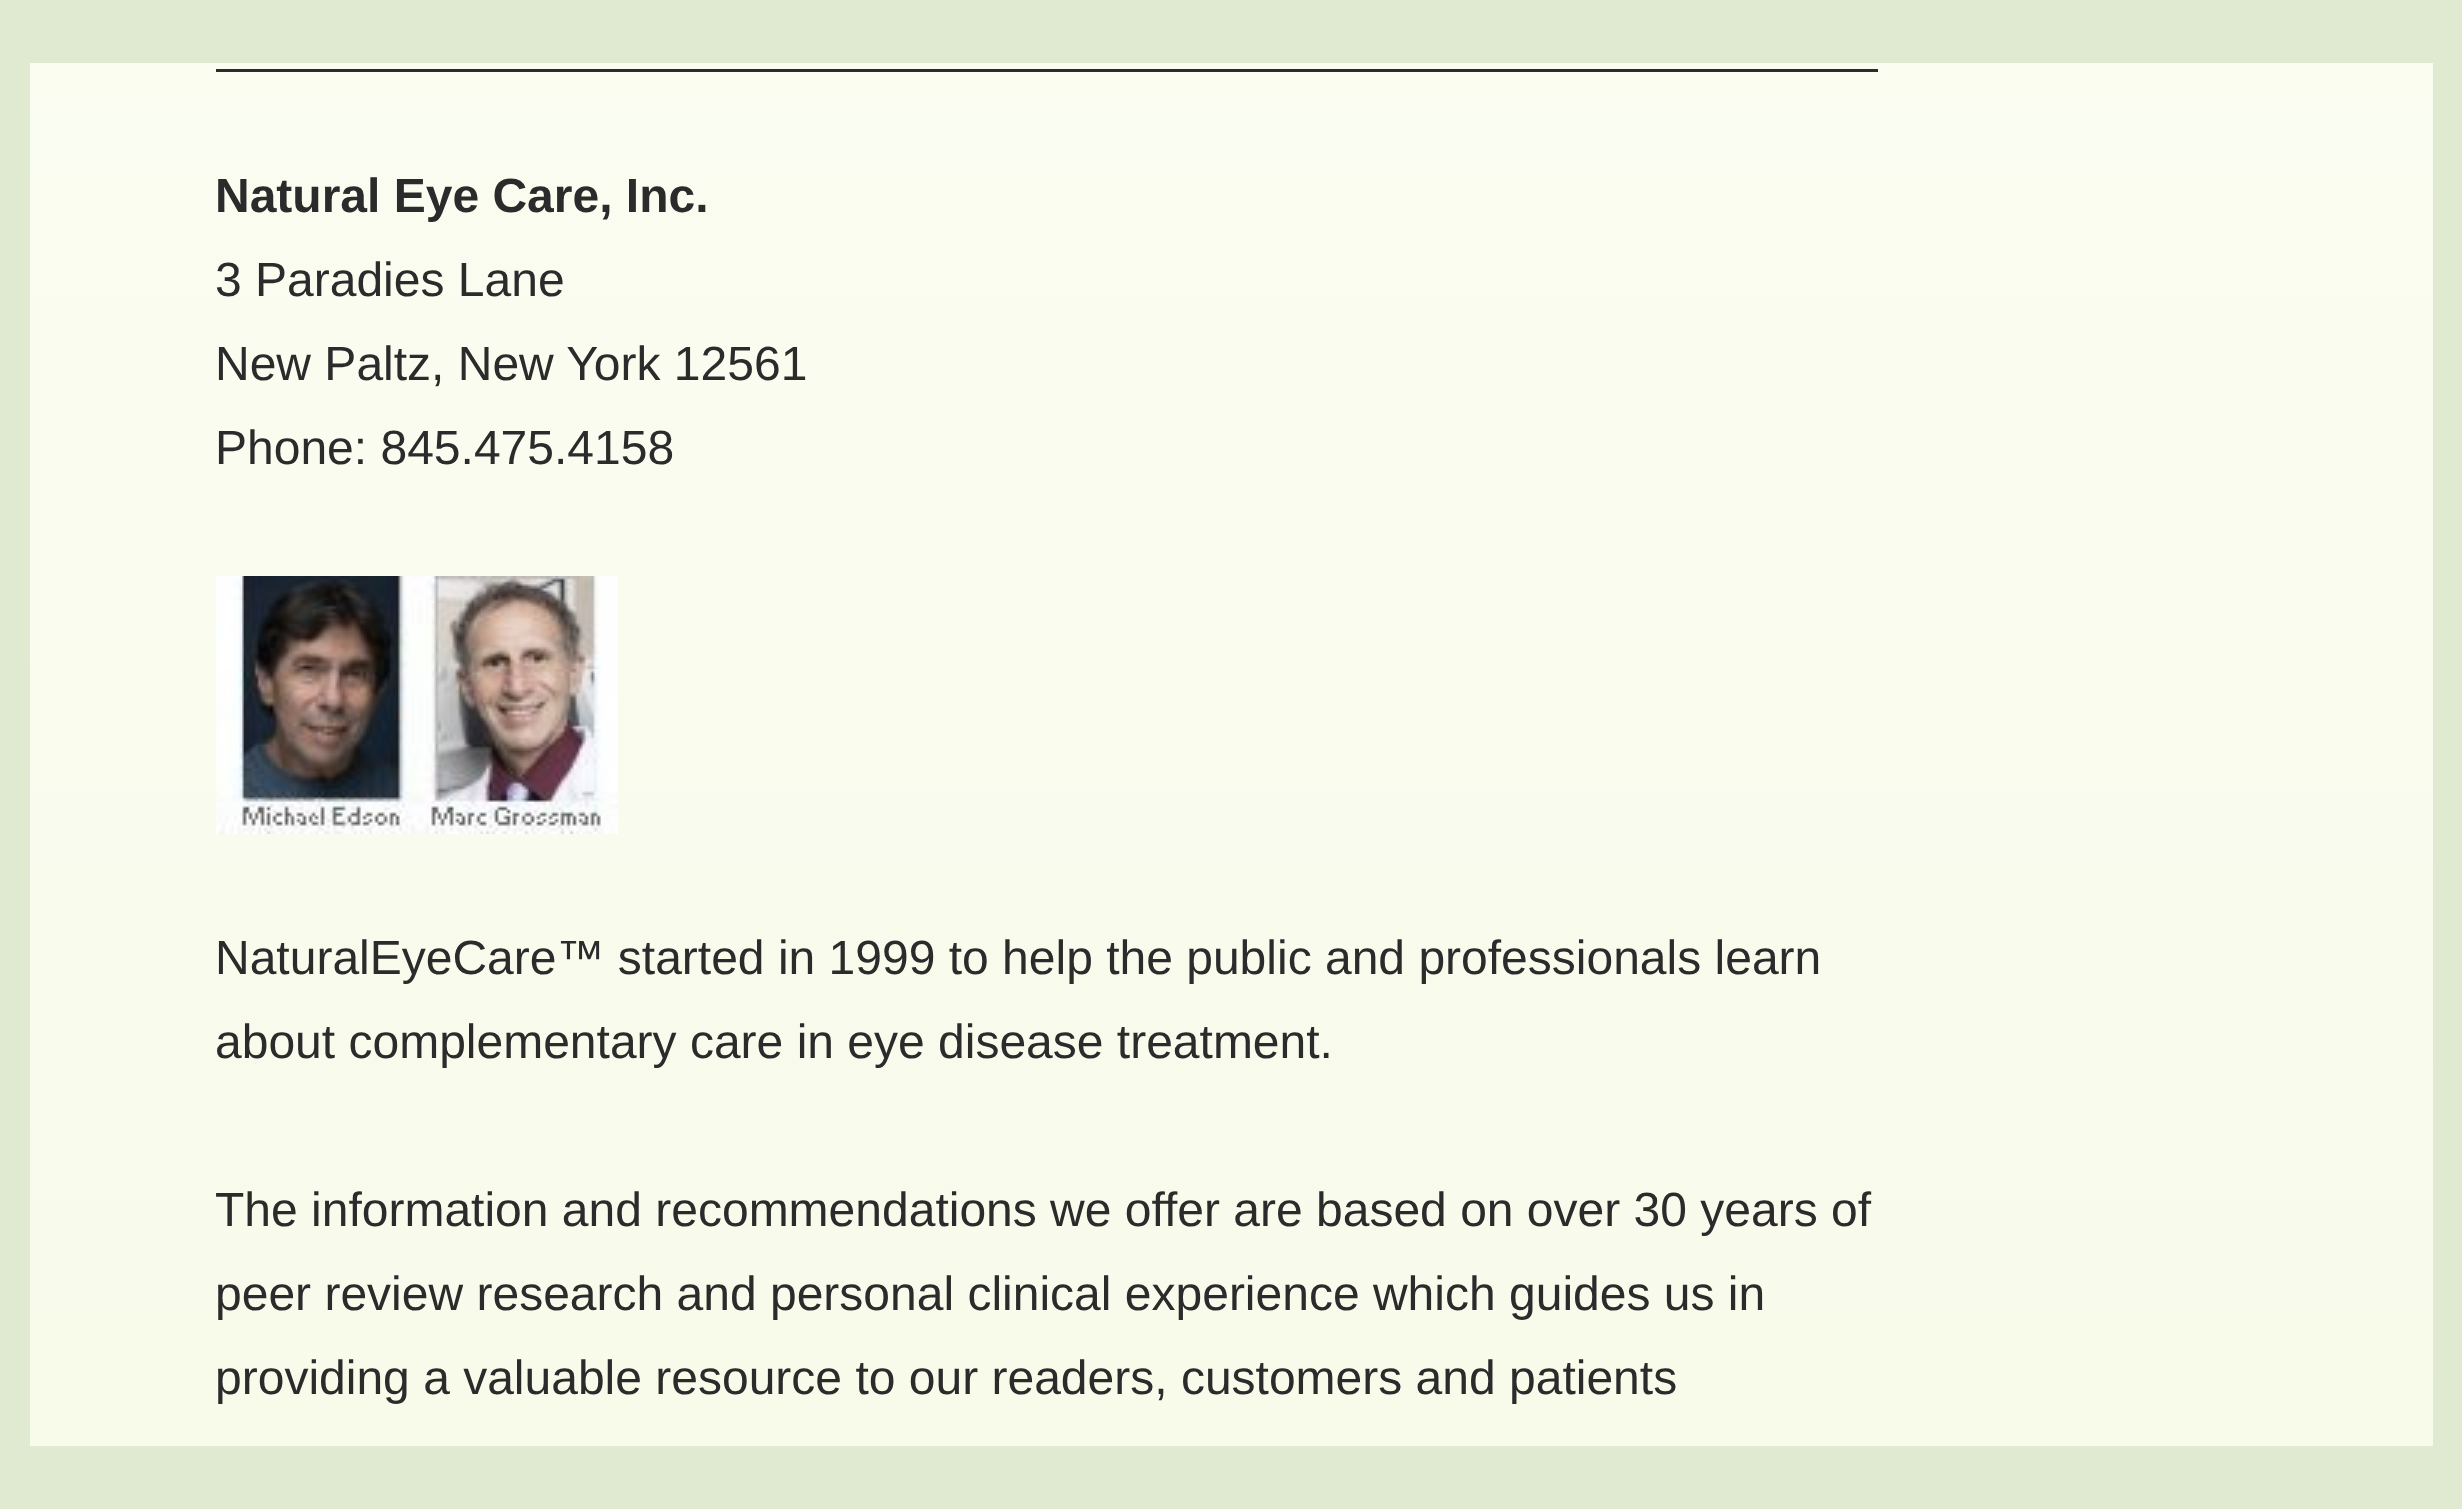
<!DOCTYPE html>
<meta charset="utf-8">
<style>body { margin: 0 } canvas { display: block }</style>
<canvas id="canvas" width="2462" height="1509"></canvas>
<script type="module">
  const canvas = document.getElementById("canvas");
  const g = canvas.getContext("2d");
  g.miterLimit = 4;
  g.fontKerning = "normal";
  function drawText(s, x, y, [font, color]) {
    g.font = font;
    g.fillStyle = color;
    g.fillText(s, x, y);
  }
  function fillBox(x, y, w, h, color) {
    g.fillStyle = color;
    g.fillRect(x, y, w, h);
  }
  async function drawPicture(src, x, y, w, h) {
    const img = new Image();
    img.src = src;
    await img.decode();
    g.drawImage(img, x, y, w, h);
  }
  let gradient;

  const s1 = ["bold 48px Liberation Sans", "#2B2B2B"];
  const s2 = ["48px Liberation Sans", "#2B2B2B"];

  fillBox(0, 0, 2462, 1509, "#E0EAD0");
  gradient = g.createLinearGradient(1231, -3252, 1232, 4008);
  gradient.addColorStop(0, "#FFFFFF");
  gradient.addColorStop(1, "#F4F9DF");
  g.fillStyle = gradient;
  g.fillRect(30, 63, 2403, 1383);
  fillBox(216, 69, 1662, 3, "#2B2B2B");
  drawText("Natural Eye Care, Inc.", 215, 212, s1);
  drawText("3 Paradies Lane", 215, 296, s2);
  drawText("New Paltz, New York 12561", 215, 380, s2);
  drawText("Phone: 845.475.4158", 215, 464, s2);
  await drawPicture("pic1.png", 216, 576, 402, 258);
  drawText("NaturalEyeCare™ started in 1999 to help the public and professionals learn", 215, 974, s2);
  drawText("about complementary care in eye disease treatment.", 215, 1058, s2);
  drawText("The information and recommendations we offer are based on over 30 years of", 215, 1226, s2);
  drawText("peer review research and personal clinical experience which guides us in", 215, 1310, s2);
  drawText("providing a valuable resource to our readers, customers and patients", 215, 1394, s2);
</script>
